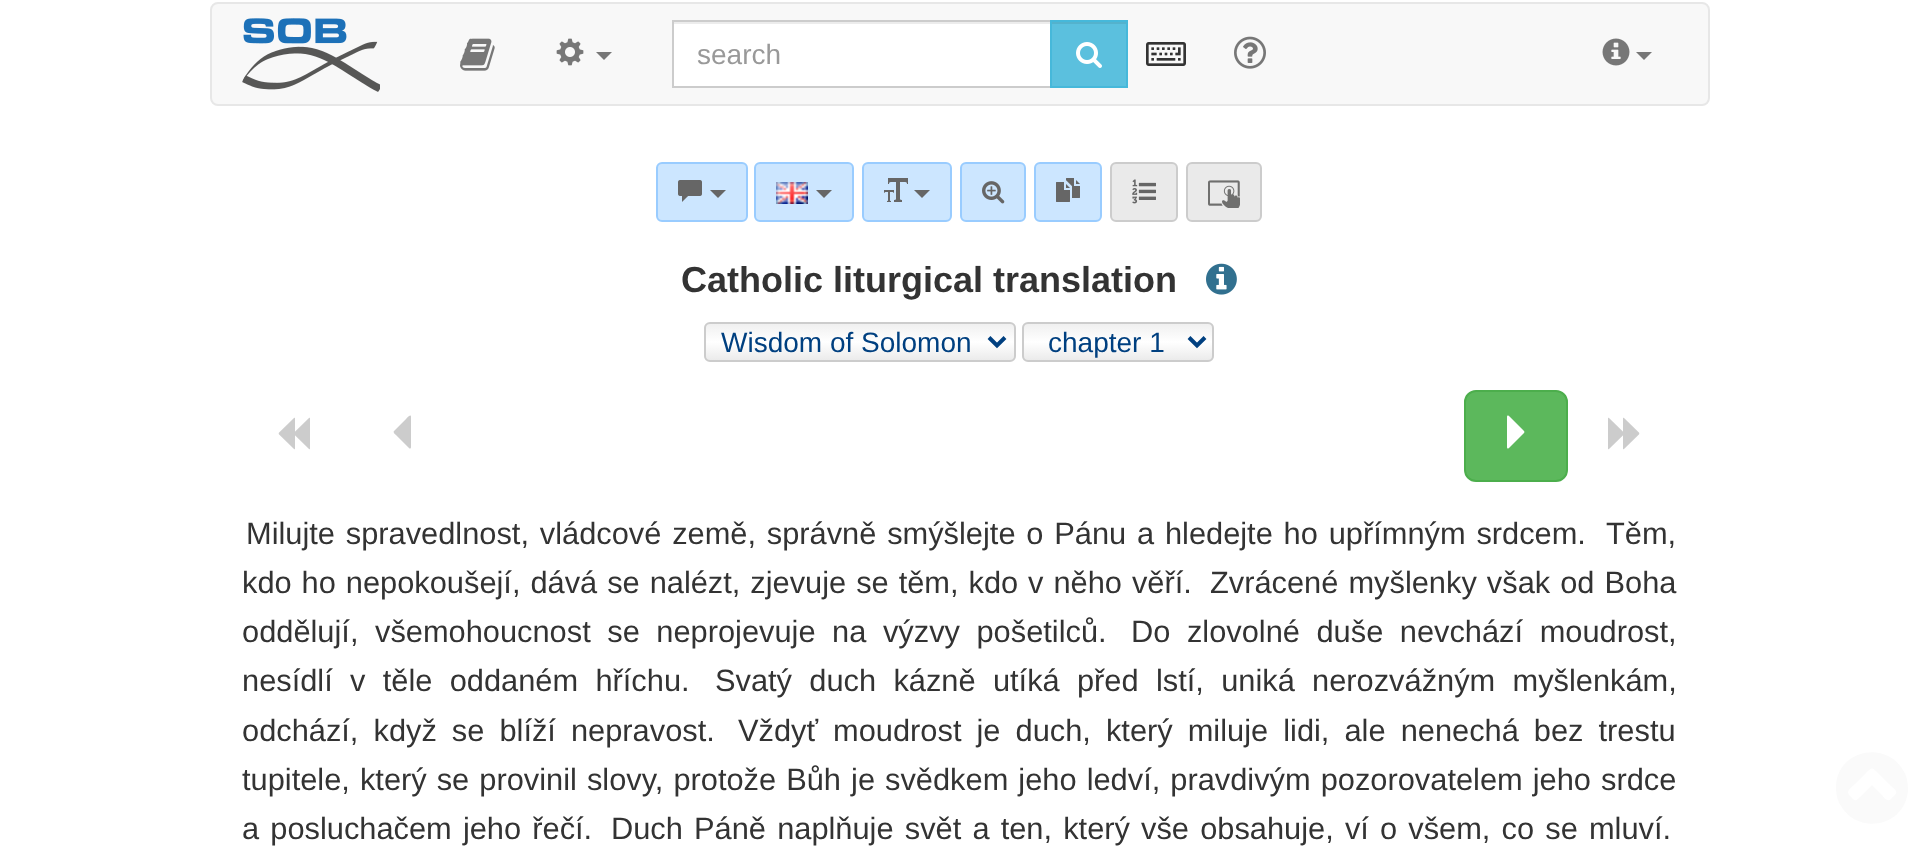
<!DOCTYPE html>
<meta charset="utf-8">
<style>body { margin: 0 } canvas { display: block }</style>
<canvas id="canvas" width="1917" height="860"></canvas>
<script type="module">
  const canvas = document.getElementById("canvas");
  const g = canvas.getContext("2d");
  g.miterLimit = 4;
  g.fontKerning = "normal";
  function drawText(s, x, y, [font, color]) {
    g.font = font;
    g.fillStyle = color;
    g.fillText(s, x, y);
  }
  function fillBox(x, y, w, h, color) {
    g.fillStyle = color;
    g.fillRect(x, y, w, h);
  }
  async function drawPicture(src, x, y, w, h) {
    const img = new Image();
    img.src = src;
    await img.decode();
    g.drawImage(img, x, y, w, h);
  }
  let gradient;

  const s1 = ["28px Liberation Sans", "#999999"];
  const s2 = ["bold 36px Liberation Sans", "#333333"];
  const s3 = ["28px Liberation Sans", "#004080"];
  const s4 = ["30.8px Liberation Sans", "#333333"];

  fillBox(0, 0, 1917, 860, "#FFFFFF");
  g.fillStyle = "#F8F8F8";
  g.beginPath();
  g.roundRect(211, 3, 1498, 102, 7);
  g.fill();
  g.strokeStyle = "#E7E7E7";
  g.lineWidth = 2;
  g.stroke();
  await drawPicture("pic1.png", 242, 18, 138, 74);
  await drawPicture("pic2.png", 460, 38, 35, 33);
  await drawPicture("pic3.png", 556, 38, 28, 28);
  g.fillStyle = "#777777";
  g.beginPath();
  g.moveTo(596, 52);
  g.lineTo(612, 52);
  g.lineTo(604, 60);
  g.closePath();
  g.fill();
  fillBox(674, 24, 376, 62, "#FFFFFF");
  fillBox(674, 22, 376, 2, "#ECECEC");
  g.strokeStyle = "#CCCCCC";
  g.strokeRect(673, 21, 378, 66);
  drawText("search", 697, 64, s1);
  fillBox(1052, 24, 74, 62, "#5BC0DE");
  fillBox(1052, 22, 74, 2, "#54B2CD");
  g.strokeStyle = "#46B8DA";
  g.strokeRect(1051, 21, 76, 66);
  await drawPicture("pic4.png", 1076, 42, 26, 26);
  await drawPicture("pic5.png", 1146, 42, 40, 24);
  await drawPicture("pic6.png", 1234, 36, 32, 33);
  await drawPicture("pic7.png", 1602, 38, 28, 28);
  g.fillStyle = "#777777";
  g.beginPath();
  g.moveTo(1636, 52);
  g.lineTo(1652, 52);
  g.lineTo(1644, 60);
  g.closePath();
  g.fill();
  g.fillStyle = "#CCE6FF";
  g.beginPath();
  g.roundRect(657, 163, 90, 58, 5);
  g.fill();
  g.strokeStyle = "#99CCFF";
  g.stroke();
  await drawPicture("pic8.png", 678, 180, 24, 22);
  g.fillStyle = "#666666";
  g.beginPath();
  g.moveTo(710, 190);
  g.lineTo(726, 190);
  g.lineTo(718, 198);
  g.closePath();
  g.fill();
  g.fillStyle = "#CCE6FF";
  g.beginPath();
  g.roundRect(755, 163, 98, 58, 5);
  g.fill();
  g.stroke();
  await drawPicture("pic9.png", 776, 182, 32, 22);
  g.fillStyle = "#666666";
  g.beginPath();
  g.moveTo(816, 190);
  g.lineTo(832, 190);
  g.lineTo(824, 198);
  g.closePath();
  g.fill();
  g.fillStyle = "#CCE6FF";
  g.beginPath();
  g.roundRect(863, 163, 88, 58, 5);
  g.fill();
  g.stroke();
  await drawPicture("pic10.png", 884, 178, 24, 24);
  g.fillStyle = "#666666";
  g.beginPath();
  g.moveTo(914, 190);
  g.lineTo(930, 190);
  g.lineTo(922, 198);
  g.closePath();
  g.fill();
  g.fillStyle = "#CCE6FF";
  g.beginPath();
  g.roundRect(961, 163, 64, 58, 5);
  g.fill();
  g.stroke();
  await drawPicture("pic11.png", 982, 181, 23, 23);
  g.beginPath();
  g.roundRect(1035, 163, 66, 58, 5);
  g.fill();
  g.stroke();
  await drawPicture("pic12.png", 1056, 178, 24, 24);
  g.fillStyle = "#EAEAEA";
  g.beginPath();
  g.roundRect(1111, 163, 66, 58, 5);
  g.fill();
  g.strokeStyle = "#CCCCCC";
  g.stroke();
  await drawPicture("pic13.png", 1132, 179, 24, 25);
  g.beginPath();
  g.roundRect(1187, 163, 74, 58, 5);
  g.fill();
  g.stroke();
  await drawPicture("pic14.png", 1208, 180, 32, 28);
  drawText("Catholic liturgical translation", 681, 292, s2);
  await drawPicture("pic15.png", 1206, 263, 31, 32);
  g.save();
  g.beginPath();
  g.roundRect(704, 322, 312, 40, 6);
  g.clip();
  gradient = g.createLinearGradient(860, 324, 860, 360);
  gradient.addColorStop(0, "#F0F0F0");
  gradient.addColorStop(0.5, "#FFFFFF");
  gradient.addColorStop(1, "#EBEBEB");
  g.fillStyle = gradient;
  g.fillRect(704, 324, 312, 36);
  g.restore();
  g.beginPath();
  g.roundRect(705, 323, 310, 38, 5);
  g.stroke();
  g.beginPath();
  g.moveTo(989, 337.5);
  g.lineTo(997, 345.5);
  g.lineTo(1005, 337.5);
  g.strokeStyle = "#004080";
  g.lineWidth = 4;
  g.stroke();
  drawText("Wisdom of Solomon", 721, 352, s3);
  g.save();
  g.beginPath();
  g.roundRect(1022, 322, 192, 40, 6);
  g.clip();
  gradient = g.createLinearGradient(1118, 324, 1118, 360);
  gradient.addColorStop(0, "#F0F0F0");
  gradient.addColorStop(0.5, "#FFFFFF");
  gradient.addColorStop(1, "#EBEBEB");
  g.fillStyle = gradient;
  g.fillRect(1022, 324, 192, 36);
  g.restore();
  g.beginPath();
  g.roundRect(1023, 323, 190, 38, 5);
  g.strokeStyle = "#CCCCCC";
  g.lineWidth = 2;
  g.stroke();
  g.beginPath();
  g.moveTo(1189, 337.5);
  g.lineTo(1197, 345.5);
  g.lineTo(1205, 337.5);
  g.strokeStyle = "#004080";
  g.lineWidth = 4;
  g.stroke();
  drawText("chapter 1", 1048, 352, s3);
  await drawPicture("pic16.png", 278, 417, 32, 33);
  g.fillStyle = "#CCCCCC";
  g.beginPath();
  g.moveTo(394, 431);
  g.lineTo(406.5, 418.5);
  g.bezierCurveTo(406.5, 418.5, 411, 413, 411, 417);
  g.lineTo(411, 447.5);
  g.lineTo(410.5, 448.5);
  g.lineTo(409.5, 448.5);
  g.lineTo(396.5, 435.5);
  g.bezierCurveTo(396, 435, 392.5, 432.5, 394, 431);
  g.closePath();
  g.fill();
  g.fillStyle = "#5CB85C";
  g.beginPath();
  g.roundRect(1465, 391, 102, 90, 11);
  g.fill();
  g.strokeStyle = "#4CAE4C";
  g.lineWidth = 2;
  g.stroke();
  await drawPicture("pic17.png", 1507, 415, 18, 34);
  await drawPicture("pic18.png", 1608, 417, 32, 33);
  g.wordSpacing = "2.25px";
  drawText("Milujte spravedlnost, vládcové země, správně smýšlejte o Pánu a hledejte ho upřímným srdcem.", 246, 544, s4);
  g.wordSpacing = "0px";
  drawText("Těm,", 1606, 544, s4);
  g.wordSpacing = "1.4px";
  drawText("kdo ho nepokoušejí, dává se nalézt, zjevuje se těm, kdo v něho věří.", 242, 593, s4);
  g.wordSpacing = "1.5px";
  drawText("Zvrácené myšlenky však od Boha", 1210, 593, s4);
  g.wordSpacing = "8px";
  drawText("oddělují, všemohoucnost se neprojevuje na výzvy pošetilců.", 242, 642, s4);
  drawText("Do zlovolné duše nevchází moudrost,", 1131, 642, s4);
  g.wordSpacing = "8.75px";
  drawText("nesídlí v těle oddaném hříchu.", 242, 691, s4);
  drawText("Svatý duch kázně utíká před lstí, uniká nerozvážným myšlenkám,", 715, 691, s4);
  g.wordSpacing = "6.5px";
  drawText("odchází, když se blíží nepravost.", 242, 741, s4);
  drawText("Vždyť moudrost je duch, který miluje lidi, ale nenechá bez trestu", 738, 741, s4);
  g.wordSpacing = "1.5px";
  drawText("tupitele, který se provinil slovy, protože Bůh je svědkem jeho ledví, pravdivým pozorovatelem jeho srdce", 242, 790, s4);
  g.wordSpacing = "2.6px";
  drawText("a posluchačem jeho řečí.", 242, 839, s4);
  drawText("Duch Páně naplňuje svět a ten, který vše obsahuje, ví o všem, co se mluví.", 611, 839, s4);
  g.fillStyle = "#FAFAFA";
  g.beginPath();
  g.moveTo(1891, 799);
  g.bezierCurveTo(1899, 791, 1898, 793, 1888, 783);
  g.lineTo(1878, 773);
  g.bezierCurveTo(1872, 767, 1872, 767, 1866, 773);
  g.lineTo(1856, 783);
  g.bezierCurveTo(1851, 788, 1845, 791, 1850, 796);
  g.bezierCurveTo(1855, 801, 1855, 802, 1860, 797);
  g.lineTo(1872, 785);
  g.lineTo(1882, 795);
  g.bezierCurveTo(1883, 796, 1887, 803, 1891, 799);
  g.closePath();
  g.moveTo(1903, 770);
  g.bezierCurveTo(1907, 776, 1908, 783, 1908, 790);
  g.bezierCurveTo(1906, 826, 1859, 836, 1841, 806);
  g.bezierCurveTo(1837, 800, 1836, 793, 1836, 786);
  g.bezierCurveTo(1838, 750, 1885, 740, 1903, 770);
  g.closePath();
  g.fill();
</script>
